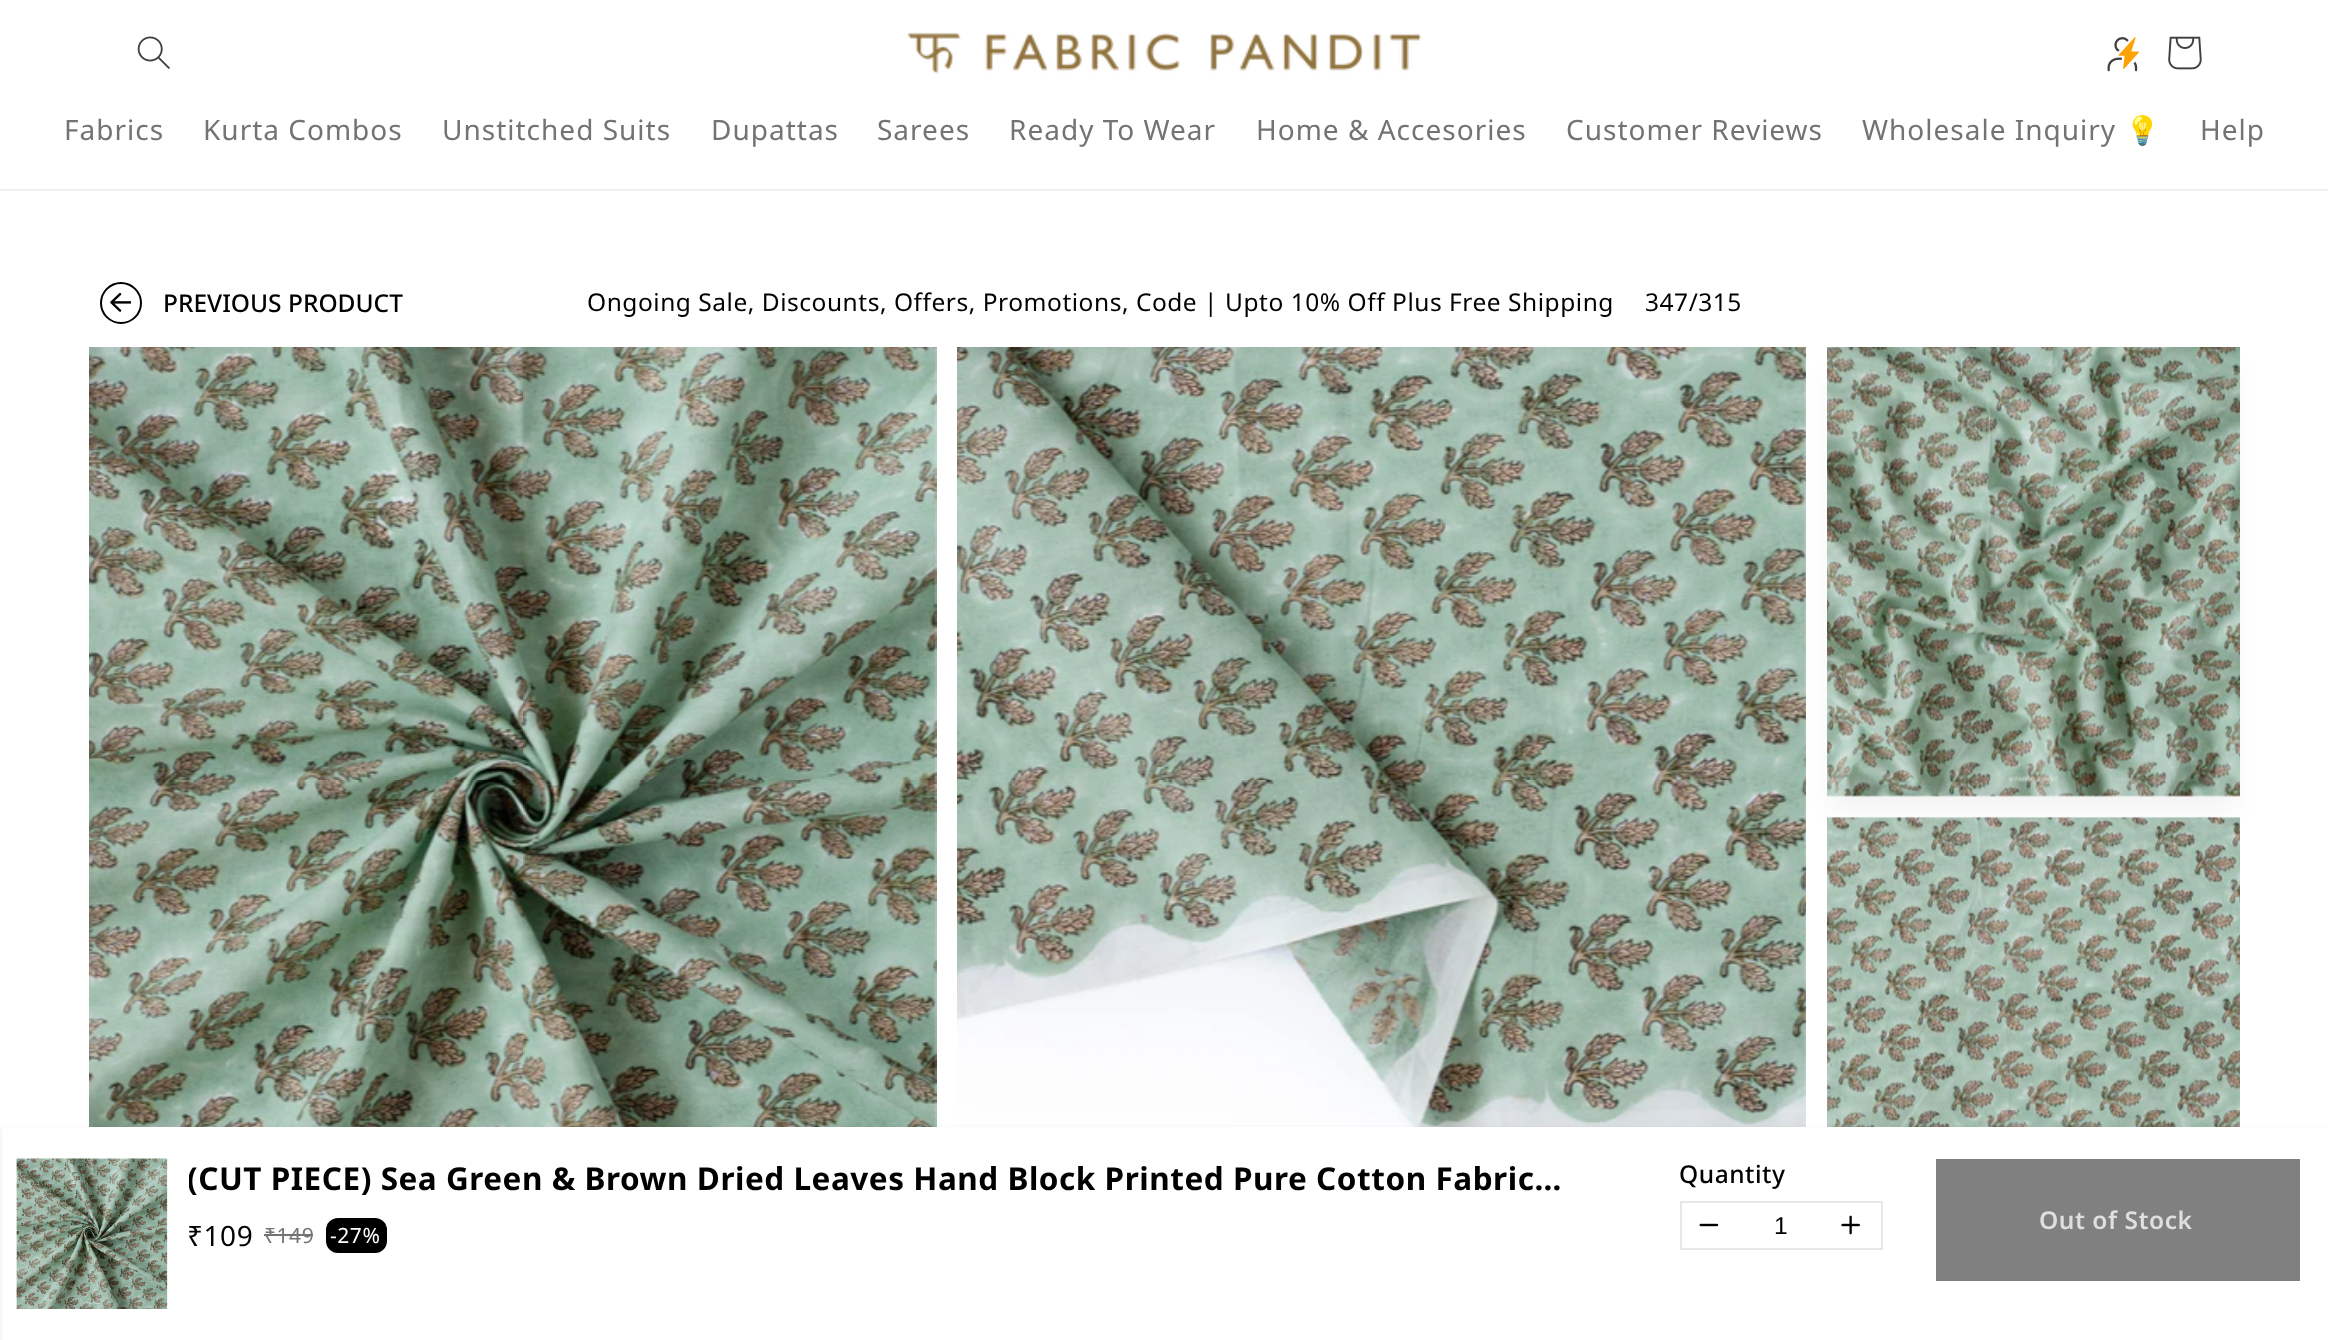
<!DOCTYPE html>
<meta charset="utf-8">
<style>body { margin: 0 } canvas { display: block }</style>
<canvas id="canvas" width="2328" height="1340"></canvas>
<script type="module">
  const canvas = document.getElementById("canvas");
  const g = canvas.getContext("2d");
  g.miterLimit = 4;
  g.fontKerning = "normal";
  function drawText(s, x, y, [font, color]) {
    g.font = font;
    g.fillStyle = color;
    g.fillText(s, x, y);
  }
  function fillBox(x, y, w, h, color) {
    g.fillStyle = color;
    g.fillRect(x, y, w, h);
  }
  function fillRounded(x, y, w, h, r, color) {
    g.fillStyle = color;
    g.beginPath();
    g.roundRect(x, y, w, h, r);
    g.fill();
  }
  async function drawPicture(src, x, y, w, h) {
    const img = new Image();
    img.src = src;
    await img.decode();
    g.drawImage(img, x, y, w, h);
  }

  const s1 = ["28px Noto Sans", "#737373"];
  const s2 = ["28px Noto Color Emoji", "#737373"];
  const s3 = ["500 24.5px Noto Sans", "#000000"];
  const s4 = ["24.5px Noto Sans", "#000000"];
  const s5 = ["bold 31.5px Noto Sans", "#000000"];
  const s6 = ["28px Noto Sans", "#000000"];
  const s7 = ["21px Noto Sans", "#737373"];
  const s8 = ["21px Noto Sans", "#FFFFFF"];
  const s9 = ["24.5px Liberation Sans", "#000000"];
  const s10 = ["600 24.5px Noto Sans", "#BFBFBF"];

  fillBox(0, 0, 2328, 1340, "#FFFFFF");
  fillBox(0, 189, 2328, 2, "#F0F0F0");
  await drawPicture("pic1.png", 137, 36, 33, 33);
  await drawPicture("pic2.png", 907, 32, 515, 42);
  await drawPicture("pic3.png", 2107, 37, 32, 35);
  await drawPicture("pic4.png", 2168, 36, 34, 34);
  g.letterSpacing = "1px";
  drawText("Fabrics", 64, 140, s1);
  drawText("Kurta Combos", 203, 140, s1);
  drawText("Unstitched Suits", 442, 140, s1);
  drawText("Dupattas", 711, 140, s1);
  drawText("Sarees", 877, 140, s1);
  drawText("Ready To Wear", 1009, 140, s1);
  drawText("Home & Accesories", 1256, 140, s1);
  drawText("Customer Reviews", 1566, 140, s1);
  drawText("Wholesale Inquiry", 1862, 140, s1);
  drawText("💡", 2125, 140, s2);
  drawText("Help", 2200, 140, s1);
  g.beginPath();
  g.arc(121, 303, 20, 0, Math.PI * 2);
  g.strokeStyle = "#000000";
  g.lineWidth = 2;
  g.stroke();
  await drawPicture("pic5.png", 110, 292, 21, 20);
  g.letterSpacing = "0px";
  drawText("PREVIOUS PRODUCT", 163, 312, s3);
  g.letterSpacing = "0.53px";
  drawText("Ongoing Sale, Discounts, Offers, Promotions, Code | Upto 10% Off Plus Free Shipping", 587, 311, s4);
  drawText("347/315", 1645, 311, s4);
  await drawPicture("pic9.png", 89, 347, 848, 780);
  await drawPicture("pic10.png", 957, 347, 849, 780);
  g.fillStyle = "rgba(0, 0, 0, 0.05)";
  g.filter = "blur(13px)";
  g.beginPath();
  g.rect(1832, 369, 403, 440);
  g.fill();
  g.filter = "none";
  fillBox(1827, 817, 413, 1, "#F3F4F6");
  await drawPicture("pic12.png", 1827, 816, 413, 311);
  g.fillStyle = "rgba(0, 0, 0, 0.1)";
  g.filter = "blur(2.5px)";
  g.beginPath();
  g.rect(2, 1129, 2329, 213);
  g.fill();
  g.filter = "none";
  fillBox(2, 1127, 2326, 213, "#FFFFFF");
  await drawPicture("pic6.png", 16, 1158, 152, 151);
  g.save();
  g.beginPath();
  g.rect(189, 1159, 1418, 38);
  g.clip();
  drawText("(CUT PIECE) Sea Green & Brown Dried Leaves Hand Block Printed Pure Cotton Fabric…", 187, 1190, s5);
  g.restore();
  drawText("₹109", 187, 1246, s6);
  drawText("₹149", 264, 1243, s7);
  fillBox(264, 1234, 49, 2, "#737373");
  fillRounded(326, 1218, 61, 35, 12, "#000000");
  drawText("-27%", 330, 1243, s8);
  drawText("Quantity", 1679, 1183, s3);
  g.strokeStyle = "#E5E7EB";
  g.strokeRect(1681, 1202, 201, 47);
  await drawPicture("pic7.png", 1699, 1223, 20, 4);
  g.letterSpacing = "0px";
  drawText("1", 1774, 1234, s9);
  await drawPicture("pic8.png", 1841, 1215, 19, 20);
  fillBox(1936, 1159, 364, 122, "#000000");
  g.letterSpacing = "0.53px";
  drawText("Out of Stock", 2039, 1229, s10);
  fillBox(1936, 1159, 364, 122, "rgba(255, 255, 255, 0.5)");
  await drawPicture("pic11.png", 1827, 347, 413, 450);
</script>
